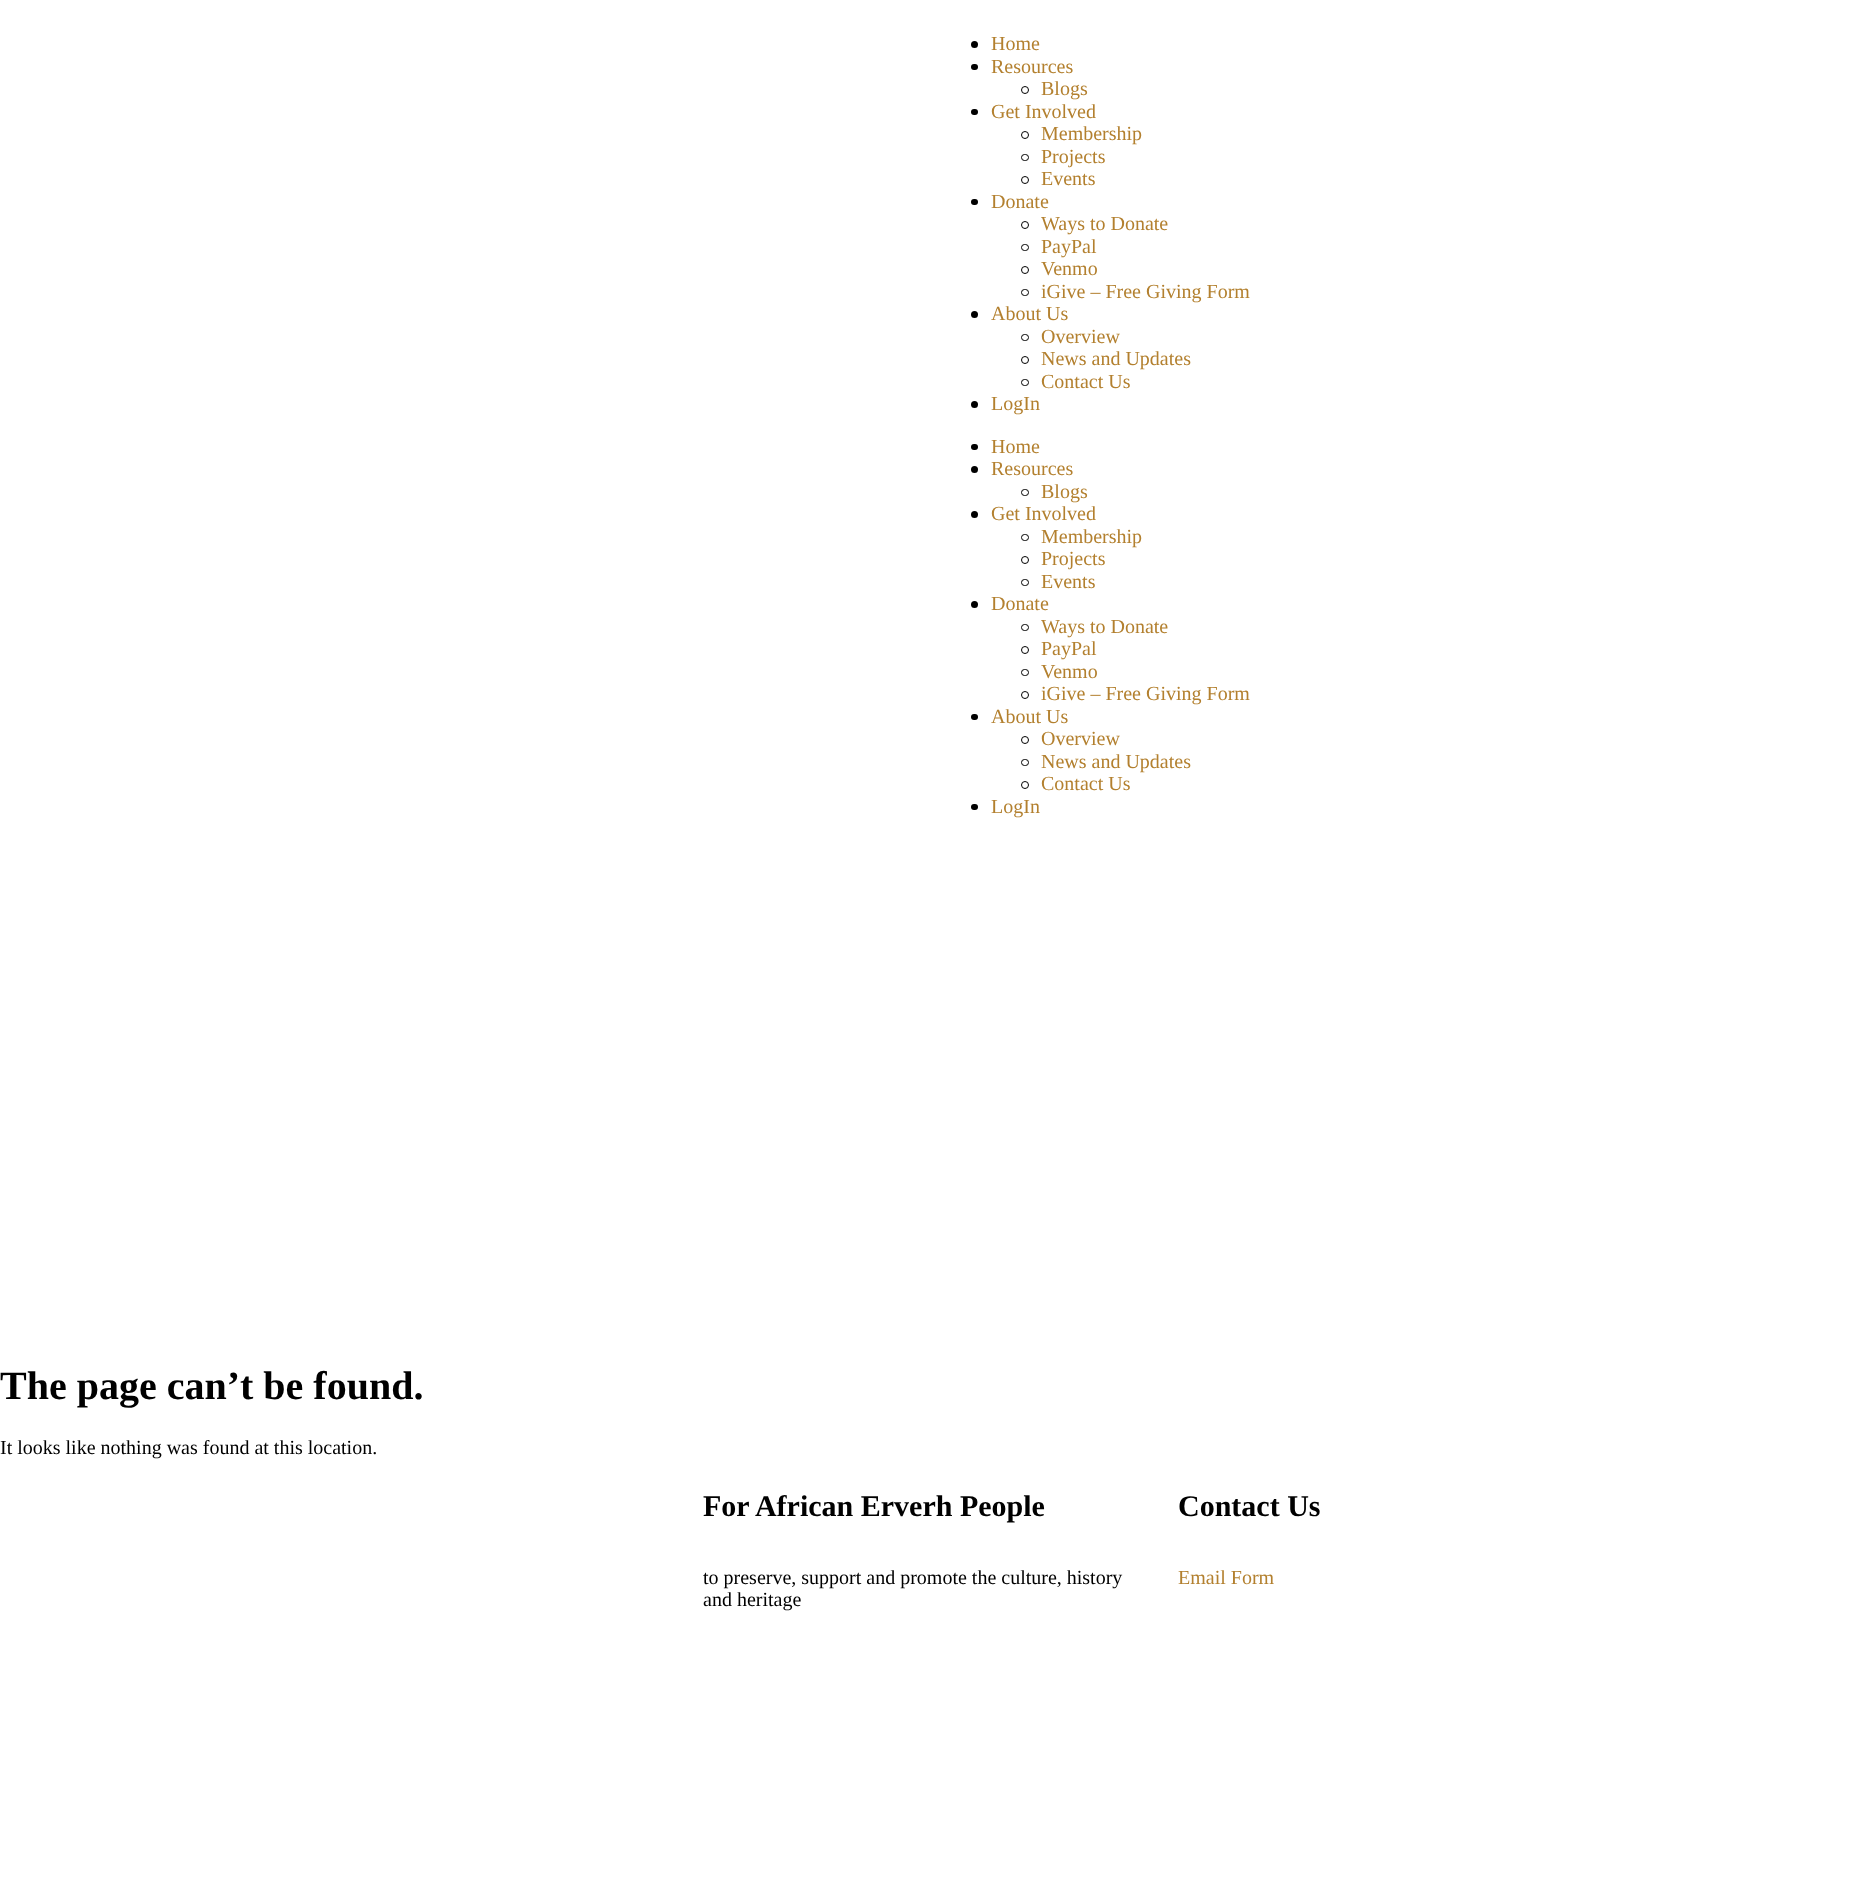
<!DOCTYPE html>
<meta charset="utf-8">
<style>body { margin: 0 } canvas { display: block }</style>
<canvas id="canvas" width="1856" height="1881"></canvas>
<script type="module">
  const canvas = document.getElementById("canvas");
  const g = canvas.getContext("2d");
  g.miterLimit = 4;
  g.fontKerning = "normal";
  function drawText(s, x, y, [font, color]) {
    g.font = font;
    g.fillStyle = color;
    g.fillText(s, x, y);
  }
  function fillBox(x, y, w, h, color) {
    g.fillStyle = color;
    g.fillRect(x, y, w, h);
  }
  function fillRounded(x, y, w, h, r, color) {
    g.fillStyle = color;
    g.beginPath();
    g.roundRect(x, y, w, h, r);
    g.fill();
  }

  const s1 = ["20px Liberation Serif", "#B3802F"];
  const s2 = ["bold 40px Liberation Serif", "#000000"];
  const s3 = ["20px Liberation Serif", "#000000"];
  const s4 = ["bold 30px Liberation Serif", "#000000"];

  fillBox(0, 0, 1856, 1881, "#FFFFFF");
  g.fillStyle = "#000000";
  g.beginPath();
  g.arc(974.5, 44.5, 3.5, 0, Math.PI * 2);
  g.fill();
  drawText("Home", 991, 50, s1);
  fillRounded(971, 64, 7, 6, 3, "#000000");
  drawText("Resources", 991, 73, s1);
  g.beginPath();
  g.arc(1025, 90, 3.5, 0, Math.PI * 2);
  g.strokeStyle = "#000000";
  g.stroke();
  drawText("Blogs", 1041, 95, s1);
  fillRounded(971, 109, 7, 6, 3, "#000000");
  drawText("Get Involved", 991, 118, s1);
  g.beginPath();
  g.arc(1025, 135, 3.5, 0, Math.PI * 2);
  g.stroke();
  drawText("Membership", 1041, 140, s1);
  g.beginPath();
  g.roundRect(1021.5, 154.5, 7, 6, 3);
  g.stroke();
  drawText("Projects", 1041, 163, s1);
  g.beginPath();
  g.arc(1025, 180, 3.5, 0, Math.PI * 2);
  g.stroke();
  drawText("Events", 1041, 185, s1);
  fillRounded(971, 199, 7, 6, 3, "#000000");
  drawText("Donate", 991, 208, s1);
  g.beginPath();
  g.arc(1025, 225, 3.5, 0, Math.PI * 2);
  g.stroke();
  drawText("Ways to Donate", 1041, 230, s1);
  g.beginPath();
  g.roundRect(1021.5, 244.5, 7, 6, 3);
  g.stroke();
  drawText("PayPal", 1041, 253, s1);
  g.beginPath();
  g.arc(1025, 270, 3.5, 0, Math.PI * 2);
  g.stroke();
  drawText("Venmo", 1041, 275, s1);
  g.beginPath();
  g.roundRect(1021.5, 289.5, 7, 6, 3);
  g.stroke();
  drawText("iGive – Free Giving Form", 1041, 298, s1);
  g.fillStyle = "#000000";
  g.beginPath();
  g.arc(974.5, 314.5, 3.5, 0, Math.PI * 2);
  g.fill();
  drawText("About Us", 991, 320, s1);
  g.beginPath();
  g.roundRect(1021.5, 334.5, 7, 6, 3);
  g.stroke();
  drawText("Overview", 1041, 343, s1);
  g.beginPath();
  g.arc(1025, 360, 3.5, 0, Math.PI * 2);
  g.stroke();
  drawText("News and Updates", 1041, 365, s1);
  g.beginPath();
  g.roundRect(1021.5, 379.5, 7, 6, 3);
  g.stroke();
  drawText("Contact Us", 1041, 388, s1);
  g.fillStyle = "#000000";
  g.beginPath();
  g.arc(974.5, 404.5, 3.5, 0, Math.PI * 2);
  g.fill();
  drawText("LogIn", 991, 410, s1);
  fillRounded(971, 444, 7, 6, 3, "#000000");
  drawText("Home", 991, 453, s1);
  g.fillStyle = "#000000";
  g.beginPath();
  g.arc(974.5, 469.5, 3.5, 0, Math.PI * 2);
  g.fill();
  drawText("Resources", 991, 475, s1);
  g.beginPath();
  g.roundRect(1021.5, 489.5, 7, 6, 3);
  g.stroke();
  drawText("Blogs", 1041, 498, s1);
  g.fillStyle = "#000000";
  g.beginPath();
  g.arc(974.5, 514.5, 3.5, 0, Math.PI * 2);
  g.fill();
  drawText("Get Involved", 991, 520, s1);
  g.beginPath();
  g.roundRect(1021.5, 534.5, 7, 6, 3);
  g.stroke();
  drawText("Membership", 1041, 543, s1);
  g.beginPath();
  g.arc(1025, 560, 3.5, 0, Math.PI * 2);
  g.stroke();
  drawText("Projects", 1041, 565, s1);
  g.beginPath();
  g.roundRect(1021.5, 579.5, 7, 6, 3);
  g.stroke();
  drawText("Events", 1041, 588, s1);
  g.fillStyle = "#000000";
  g.beginPath();
  g.arc(974.5, 604.5, 3.5, 0, Math.PI * 2);
  g.fill();
  drawText("Donate", 991, 610, s1);
  g.beginPath();
  g.roundRect(1021.5, 624.5, 7, 6, 3);
  g.stroke();
  drawText("Ways to Donate", 1041, 633, s1);
  g.beginPath();
  g.arc(1025, 650, 3.5, 0, Math.PI * 2);
  g.stroke();
  drawText("PayPal", 1041, 655, s1);
  g.beginPath();
  g.roundRect(1021.5, 669.5, 7, 6, 3);
  g.stroke();
  drawText("Venmo", 1041, 678, s1);
  g.beginPath();
  g.arc(1025, 695, 3.5, 0, Math.PI * 2);
  g.stroke();
  drawText("iGive – Free Giving Form", 1041, 700, s1);
  fillRounded(971, 714, 7, 6, 3, "#000000");
  drawText("About Us", 991, 723, s1);
  g.beginPath();
  g.arc(1025, 740, 3.5, 0, Math.PI * 2);
  g.stroke();
  drawText("Overview", 1041, 745, s1);
  g.beginPath();
  g.roundRect(1021.5, 759.5, 7, 6, 3);
  g.stroke();
  drawText("News and Updates", 1041, 768, s1);
  g.beginPath();
  g.arc(1025, 785, 3.5, 0, Math.PI * 2);
  g.stroke();
  drawText("Contact Us", 1041, 790, s1);
  fillRounded(971, 804, 7, 6, 3, "#000000");
  drawText("LogIn", 991, 813, s1);
  drawText("The page can’t be found.", 0, 1399, s2);
  drawText("It looks like nothing was found at this location.", 0, 1454, s3);
  drawText("For African Erverh People", 703, 1516, s4);
  drawText("to preserve, support and promote the culture, history", 703, 1584, s3);
  drawText("and heritage", 703, 1606, s3);
  drawText("Contact Us", 1178, 1516, s4);
  drawText("Email Form", 1178, 1584, s1);
</script>
